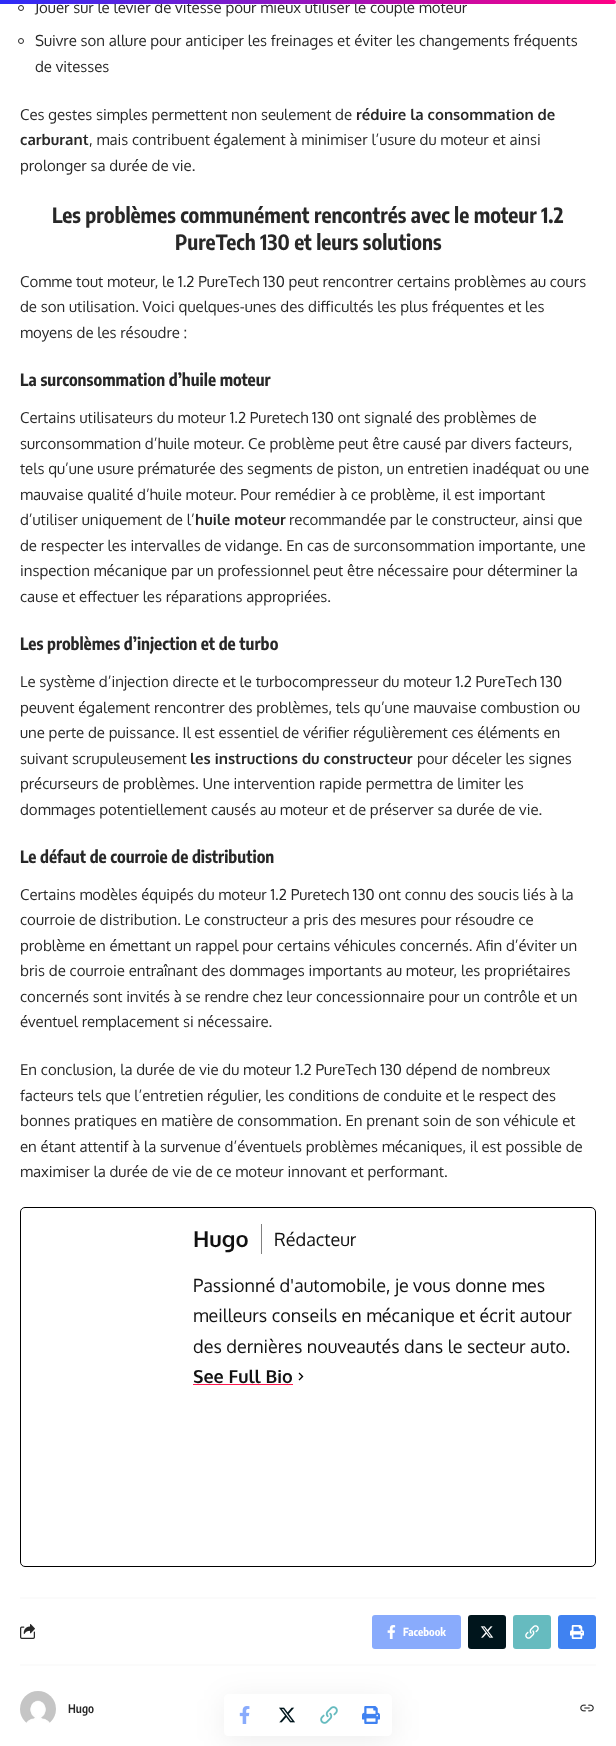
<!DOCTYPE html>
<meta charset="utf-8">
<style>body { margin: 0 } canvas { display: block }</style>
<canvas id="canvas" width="616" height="1746"></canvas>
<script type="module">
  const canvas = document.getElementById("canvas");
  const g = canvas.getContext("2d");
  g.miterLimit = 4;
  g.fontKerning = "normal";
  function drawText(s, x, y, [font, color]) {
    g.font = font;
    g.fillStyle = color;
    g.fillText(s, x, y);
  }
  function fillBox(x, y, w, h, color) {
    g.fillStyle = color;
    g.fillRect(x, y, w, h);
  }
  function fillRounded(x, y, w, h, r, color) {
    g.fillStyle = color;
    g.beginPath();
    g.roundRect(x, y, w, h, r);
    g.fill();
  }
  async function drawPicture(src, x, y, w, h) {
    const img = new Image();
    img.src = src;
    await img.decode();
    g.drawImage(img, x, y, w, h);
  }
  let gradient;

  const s1 = ["15px Oxygen", "#282828"];
  const s2 = ["bold 15px Oxygen", "#282828"];
  const s3 = ["bold 21px Encode Sans Condensed", "#282828"];
  const s4 = ["bold 17px Encode Sans Condensed", "#282828"];
  const s5 = ["bold 22px Oxygen", "#111111"];
  const s6 = ["18px Oxygen", "#111111"];
  const s7 = ["bold 18px Oxygen", "#111111"];
  const s8 = ["bold 11px Encode Sans Condensed", "#FFFFFF"];
  const s9 = ["600 12px Encode Sans Condensed", "#282828"];

  fillBox(0, 0, 616, 1746, "#FFFFFF");
  drawText("Jouer sur le levier de vitesse pour mieux utiliser le couple moteur", 35, 13, s1);
  gradient = g.createLinearGradient(616, 2, 0, 2);
  gradient.addColorStop(0, "#FF0084");
  gradient.addColorStop(1, "#2C2CF8");
  g.fillStyle = gradient;
  g.beginPath();
  g.roundRect(0, 0, 616, 4, [0, 2, 2, 0]);
  g.fill();
  g.beginPath();
  g.arc(21, 8, 2.5, 0, Math.PI * 2);
  g.strokeStyle = "#282828";
  g.stroke();
  g.beginPath();
  g.arc(21, 41, 2.5, 0, Math.PI * 2);
  g.stroke();
  drawText("Suivre son allure pour anticiper les freinages et éviter les changements fréquents", 35, 46, s1);
  drawText("de vitesses", 35, 72, s1);
  drawText("Ces gestes simples permettent non seulement de", 20, 120, s1);
  drawText("réduire la consommation de", 356, 120, s2);
  drawText("carburant", 20, 145, s2);
  drawText(", mais contribuent également à minimiser l’usure du moteur et ainsi", 89, 145, s1);
  drawText("prolonger sa durée de vie.", 20, 171, s1);
  drawText("Les problèmes communément rencontrés avec le moteur 1.2", 52, 223, s3);
  drawText("PureTech 130 et leurs solutions", 175, 250, s3);
  drawText("Comme tout moteur, le 1.2 PureTech 130 peut rencontrer certains problèmes au cours", 20, 287, s1);
  drawText("de son utilisation. Voici quelques-unes des difficultés les plus fréquentes et les", 20, 312, s1);
  drawText("moyens de les résoudre :", 20, 338, s1);
  drawText("La surconsommation d’huile moteur", 20, 386, s4);
  drawText("Certains utilisateurs du moteur 1.2 Puretech 130 ont signalé des problèmes de", 20, 423, s1);
  drawText("surconsommation d’huile moteur. Ce problème peut être causé par divers facteurs,", 20, 449, s1);
  drawText("tels qu’une usure prématurée des segments de piston, un entretien inadéquat ou une", 20, 474, s1);
  drawText("mauvaise qualité d’huile moteur. Pour remédier à ce problème, il est important", 20, 500, s1);
  drawText("d’utiliser uniquement de l’", 20, 525, s1);
  drawText("huile moteur", 195, 525, s2);
  drawText("recommandée par le constructeur, ainsi que", 289, 525, s1);
  drawText("de respecter les intervalles de vidange. En cas de surconsommation importante, une", 20, 551, s1);
  drawText("inspection mécanique par un professionnel peut être nécessaire pour déterminer la", 20, 576, s1);
  drawText("cause et effectuer les réparations appropriées.", 20, 602, s1);
  drawText("Les problèmes d’injection et de turbo", 20, 650, s4);
  drawText("Le système d’injection directe et le turbocompresseur du moteur 1.2 PureTech 130", 20, 687, s1);
  drawText("peuvent également rencontrer des problèmes, tels qu’une mauvaise combustion ou", 20, 713, s1);
  drawText("une perte de puissance. Il est essentiel de vérifier régulièrement ces éléments en", 20, 738, s1);
  drawText("suivant scrupuleusement", 20, 764, s1);
  drawText("les instructions du constructeur", 190, 764, s2);
  drawText("pour déceler les signes", 417, 764, s1);
  drawText("précurseurs de problèmes. Une intervention rapide permettra de limiter les", 20, 789, s1);
  drawText("dommages potentiellement causés au moteur et de préserver sa durée de vie.", 20, 815, s1);
  drawText("Le défaut de courroie de distribution", 20, 863, s4);
  drawText("Certains modèles équipés du moteur 1.2 Puretech 130 ont connu des soucis liés à la", 20, 900, s1);
  drawText("courroie de distribution. Le constructeur a pris des mesures pour résoudre ce", 20, 925, s1);
  drawText("problème en émettant un rappel pour certains véhicules concernés. Afin d’éviter un", 20, 951, s1);
  drawText("bris de courroie entraînant des dommages importants au moteur, les propriétaires", 20, 976, s1);
  drawText("concernés sont invités à se rendre chez leur concessionnaire pour un contrôle et un", 20, 1002, s1);
  drawText("éventuel remplacement si nécessaire.", 20, 1027, s1);
  drawText("En conclusion, la durée de vie du moteur 1.2 PureTech 130 dépend de nombreux", 20, 1075, s1);
  drawText("facteurs tels que l’entretien régulier, les conditions de conduite et le respect des", 20, 1101, s1);
  drawText("bonnes pratiques en matière de consommation. En prenant soin de son véhicule et", 20, 1126, s1);
  drawText("en étant attentif à la survenue d’éventuels problèmes mécaniques, il est possible de", 20, 1152, s1);
  drawText("maximiser la durée de vie de ce moteur innovant et performant.", 20, 1177, s1);
  g.beginPath();
  g.roundRect(20.5, 1207.5, 575, 359, 4.5);
  g.strokeStyle = "#000000";
  g.stroke();
  drawText("Hugo", 193, 1247, s5);
  fillBox(261, 1224, 1, 30, "#808080");
  drawText("Rédacteur", 274, 1246, s6);
  drawText("Passionné d'automobile, je vous donne mes", 193, 1292, s6);
  drawText("meilleurs conseils en mécanique et écrit autour", 193, 1322, s6);
  drawText("des dernières nouveautés dans le secteur auto.", 193, 1353, s6);
  drawText("See Full Bio", 193, 1383, s7);
  fillBox(193, 1384, 100, 1, "#FF184E");
  await drawPicture("pic1.png", 298, 1372, 6, 9);
  fillBox(20, 1664, 576, 2, "#FBFBFB");
  g.save();
  g.beginPath();
  g.moveTo(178, 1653);
  g.lineTo(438, 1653);
  g.lineTo(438, 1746);
  g.lineTo(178, 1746);
  g.closePath();
  g.moveTo(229, 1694);
  g.lineTo(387, 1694);
  g.bezierCurveTo(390, 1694, 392, 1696, 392, 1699);
  g.lineTo(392, 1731);
  g.bezierCurveTo(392, 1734, 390, 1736, 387, 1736);
  g.lineTo(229, 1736);
  g.bezierCurveTo(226, 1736, 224, 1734, 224, 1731);
  g.lineTo(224, 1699);
  g.bezierCurveTo(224, 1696, 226, 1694, 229, 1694);
  g.closePath();
  g.clip("evenodd");
  g.fillStyle = "rgba(0, 0, 0, 0.07)";
  g.filter = "blur(15px)";
  g.beginPath();
  g.roundRect(224, 1699, 168, 42, 5);
  g.fill();
  g.filter = "none";
  g.restore();
  await drawPicture("pic2.png", 239, 1706, 11, 18);
  await drawPicture("pic3.png", 279, 1707, 16, 16);
  await drawPicture("pic4.png", 320, 1706, 18, 18);
  await drawPicture("pic5.png", 362, 1706, 18, 18);
  fillBox(20, 1597, 576, 2, "#FBFBFB");
  await drawPicture("pic6.png", 20, 1624, 15, 15);
  fillRounded(372, 1615, 89, 34, 3, "#89ABFC");
  await drawPicture("pic7.png", 387, 1625, 9, 14);
  drawText("Facebook", 403, 1636, s8);
  fillRounded(468, 1615, 38, 34, 3, "#00151C");
  await drawPicture("pic8.png", 480, 1626, 14, 12);
  fillRounded(513, 1615, 38, 34, 3, "#66BBBF");
  await drawPicture("pic9.png", 525, 1625, 14, 14);
  fillRounded(558, 1615, 38, 34, 3, "#4082F1");
  await drawPicture("pic10.png", 570, 1625, 14, 14);
  await drawPicture("pic11.png", 20, 1691, 36, 32);
  drawText("Hugo", 68, 1713, s9);
  await drawPicture("pic12.png", 580, 1704, 14, 8);
</script>
